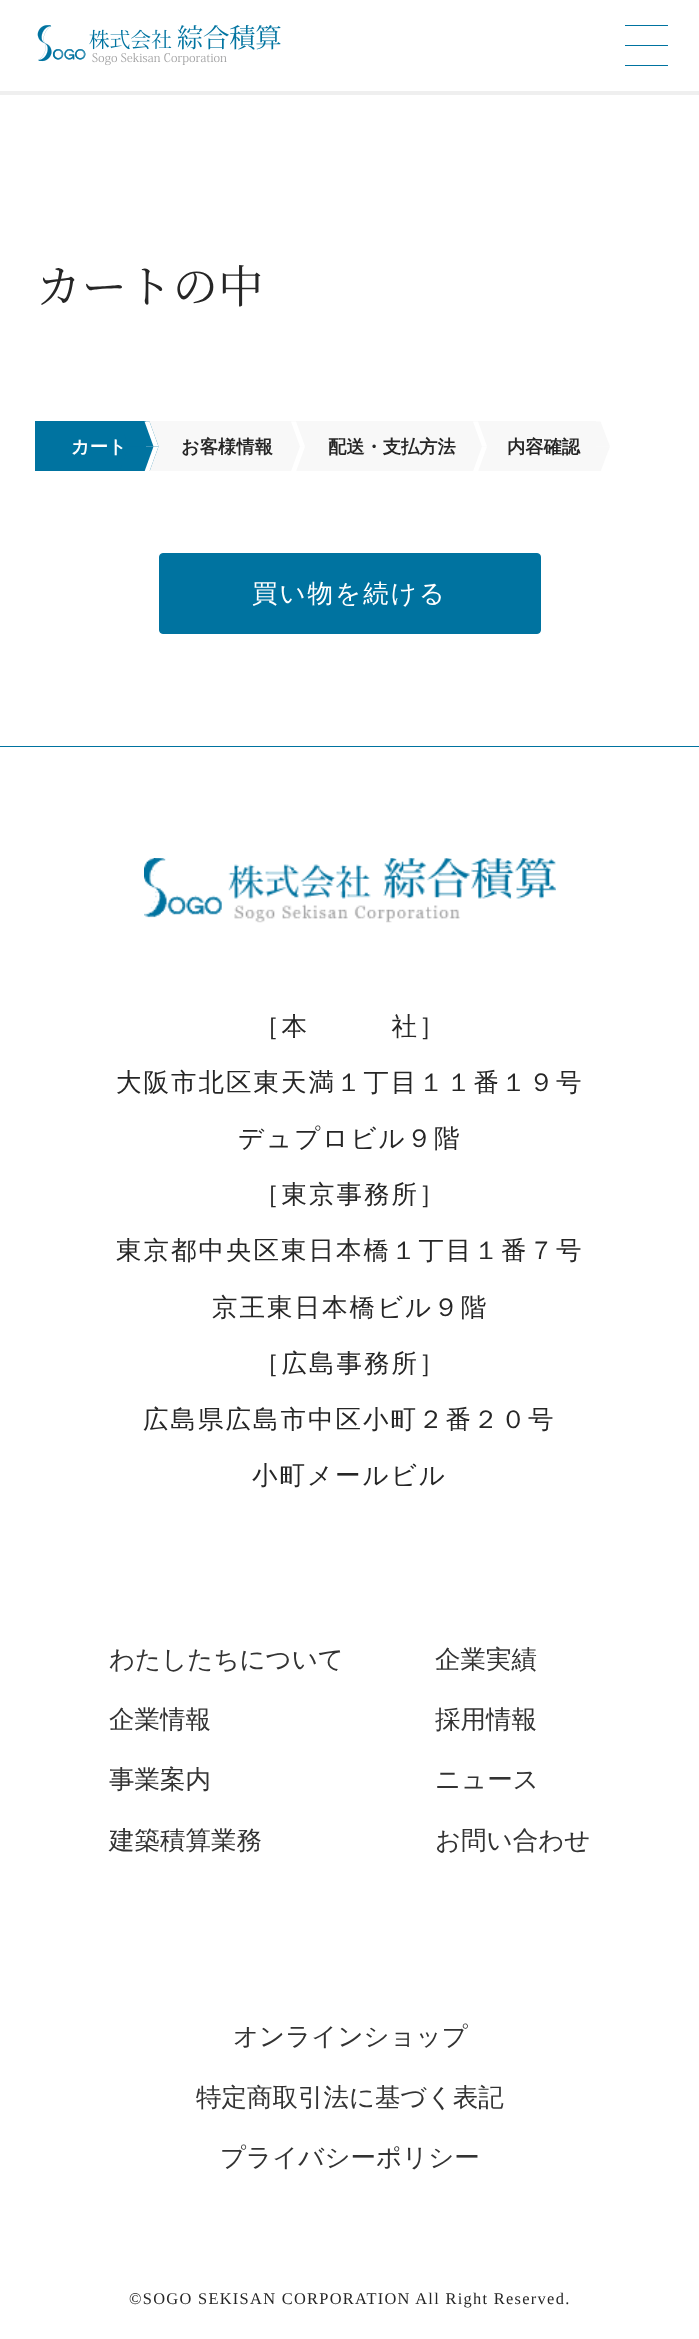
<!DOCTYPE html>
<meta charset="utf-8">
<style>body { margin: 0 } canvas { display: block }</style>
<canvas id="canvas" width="699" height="2339"></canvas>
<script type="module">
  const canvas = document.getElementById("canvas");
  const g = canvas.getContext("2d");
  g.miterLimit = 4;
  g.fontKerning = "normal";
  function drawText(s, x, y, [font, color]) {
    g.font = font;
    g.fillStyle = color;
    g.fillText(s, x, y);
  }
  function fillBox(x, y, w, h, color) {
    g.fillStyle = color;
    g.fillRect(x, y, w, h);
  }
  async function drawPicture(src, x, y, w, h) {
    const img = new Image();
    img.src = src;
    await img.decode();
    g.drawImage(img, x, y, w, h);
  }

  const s1 = ["45.5px Noto Serif JP", "#262626"];
  const s2 = ["bold 18.25px WenQuanYi Zen Hei", "#FFFFFF"];
  const s3 = ["bold 18.25px WenQuanYi Zen Hei", "#262626"];
  const s4 = ["500 25.5px WenQuanYi Zen Hei", "#FFFFFF"];
  const s5 = ["500 25.5px WenQuanYi Zen Hei", "#262626"];
  const s6 = ["500 25.5px WenQuanYi Zen Hei", "#333333"];
  const s7 = ["16.4px Liberation Serif", "#262626"];

  fillBox(0, 0, 699, 2339, "#FFFFFF");
  fillBox(0, 91, 699, 4, "#EFEFEF");
  await drawPicture("pic1.png", 37, 25, 244, 41);
  fillBox(625, 25, 43, 1, "#0073A0");
  fillBox(625, 45, 43, 1, "#0073A0");
  fillBox(625, 65, 43, 1, "#0073A0");
  drawText("カートの中", 36, 303, s1);
  fillBox(35, 421, 111, 50, "#0073A0");
  drawText("カート", 71, 453, s2);
  fillBox(146, 421, 450, 50, "#F8F8F8");
  g.fillStyle = "#0073A0";
  g.beginPath();
  g.moveTo(119.5, 421.5);
  g.lineTo(149.5, 421.5);
  g.lineTo(158.5, 446.5);
  g.lineTo(128.5, 446.5);
  g.closePath();
  g.fill();
  g.fillStyle = "#FFFFFF";
  g.beginPath();
  g.moveTo(144.5, 421.5);
  g.lineTo(149.5, 421.5);
  g.lineTo(158.5, 446.5);
  g.lineTo(153.5, 446.5);
  g.closePath();
  g.fill();
  g.save();
  g.beginPath();
  g.rect(35, 421, 630, 50);
  g.clip();
  g.fillStyle = "#0073A0";
  g.beginPath();
  g.moveTo(128.5, 446.5);
  g.lineTo(158.5, 446.5);
  g.lineTo(149.5, 471.5);
  g.lineTo(119.5, 471.5);
  g.closePath();
  g.fill();
  g.fillStyle = "#FFFFFF";
  g.beginPath();
  g.moveTo(153.5, 446.5);
  g.lineTo(158.5, 446.5);
  g.lineTo(149.5, 471.5);
  g.lineTo(144.5, 471.5);
  g.closePath();
  g.fill();
  g.restore();
  drawText("お客様情報", 181, 453, s3);
  g.fillStyle = "#FFFFFF";
  g.beginPath();
  g.moveTo(291, 421.5);
  g.lineTo(296, 421.5);
  g.lineTo(305, 446.5);
  g.lineTo(300, 446.5);
  g.closePath();
  g.fill();
  g.save();
  g.beginPath();
  g.rect(35, 421, 630, 50);
  g.clip();
  g.beginPath();
  g.moveTo(300, 446.5);
  g.lineTo(305, 446.5);
  g.lineTo(296, 471.5);
  g.lineTo(291, 471.5);
  g.closePath();
  g.fill();
  g.restore();
  drawText("配送・支払方法", 328, 453, s3);
  g.fillStyle = "#FFFFFF";
  g.beginPath();
  g.moveTo(473, 421.5);
  g.lineTo(478, 421.5);
  g.lineTo(487, 446.5);
  g.lineTo(482, 446.5);
  g.closePath();
  g.fill();
  g.save();
  g.beginPath();
  g.rect(35, 421, 630, 50);
  g.clip();
  g.fillStyle = "#F8F8F8";
  g.beginPath();
  g.moveTo(457, 446.5);
  g.lineTo(487, 446.5);
  g.lineTo(478, 471.5);
  g.lineTo(448, 471.5);
  g.closePath();
  g.fill();
  g.fillStyle = "#FFFFFF";
  g.beginPath();
  g.moveTo(482, 446.5);
  g.lineTo(487, 446.5);
  g.lineTo(478, 471.5);
  g.lineTo(473, 471.5);
  g.closePath();
  g.fill();
  g.restore();
  drawText("内容確認", 507, 453, s3);
  g.fillStyle = "#F8F8F8";
  g.beginPath();
  g.moveTo(575.5, 421.5);
  g.lineTo(600.5, 421.5);
  g.lineTo(610, 446.5);
  g.lineTo(585, 446.5);
  g.closePath();
  g.fill();
  g.save();
  g.beginPath();
  g.rect(35, 421, 630, 50);
  g.clip();
  g.beginPath();
  g.moveTo(585, 446.5);
  g.lineTo(610, 446.5);
  g.lineTo(600.5, 471.5);
  g.lineTo(575.5, 471.5);
  g.closePath();
  g.fill();
  g.restore();
  g.fillStyle = "#0073A0";
  g.beginPath();
  g.roundRect(159.5, 553.5, 381, 80, 3.5);
  g.fill();
  g.strokeStyle = "#0073A0";
  g.stroke();
  g.letterSpacing = "2px";
  drawText("買い物を続ける", 252, 602, s4);
  fillBox(0, 746, 699, 1, "#0073A0");
  await drawPicture("pic2.png", 144, 858, 412, 65);
  drawText("［本　　　社］", 254, 1035, s5);
  drawText("大阪市北区東天満１丁目１１番１９号", 116, 1091, s5);
  drawText("デュプロビル９階", 238, 1147, s5);
  drawText("［東京事務所］", 254, 1203, s5);
  drawText("東京都中央区東日本橋１丁目１番７号", 116, 1259, s5);
  drawText("京王東日本橋ビル９階", 212, 1316, s5);
  drawText("［広島事務所］", 254, 1372, s5);
  drawText("広島県広島市中区小町２番２０号", 143, 1428, s5);
  drawText("小町メールビル", 252, 1484, s5);
  g.letterSpacing = "0px";
  drawText("わたしたちについて", 109, 1668, s6);
  drawText("企業情報", 109, 1728, s6);
  drawText("事業案内", 109, 1788, s6);
  drawText("建築積算業務", 109, 1849, s6);
  drawText("企業実績", 435, 1668, s6);
  drawText("採用情報", 435, 1728, s6);
  drawText("ニュース", 435, 1788, s6);
  drawText("お問い合わせ", 435, 1849, s6);
  drawText("オンラインショップ", 233, 2045, s6);
  drawText("特定商取引法に基づく表記", 196, 2106, s6);
  drawText("プライバシーポリシー", 220, 2166, s6);
  g.letterSpacing = "1.3px";
  drawText("©SOGO SEKISAN CORPORATION All Right Reserved.", 129, 2304, s7);
</script>
